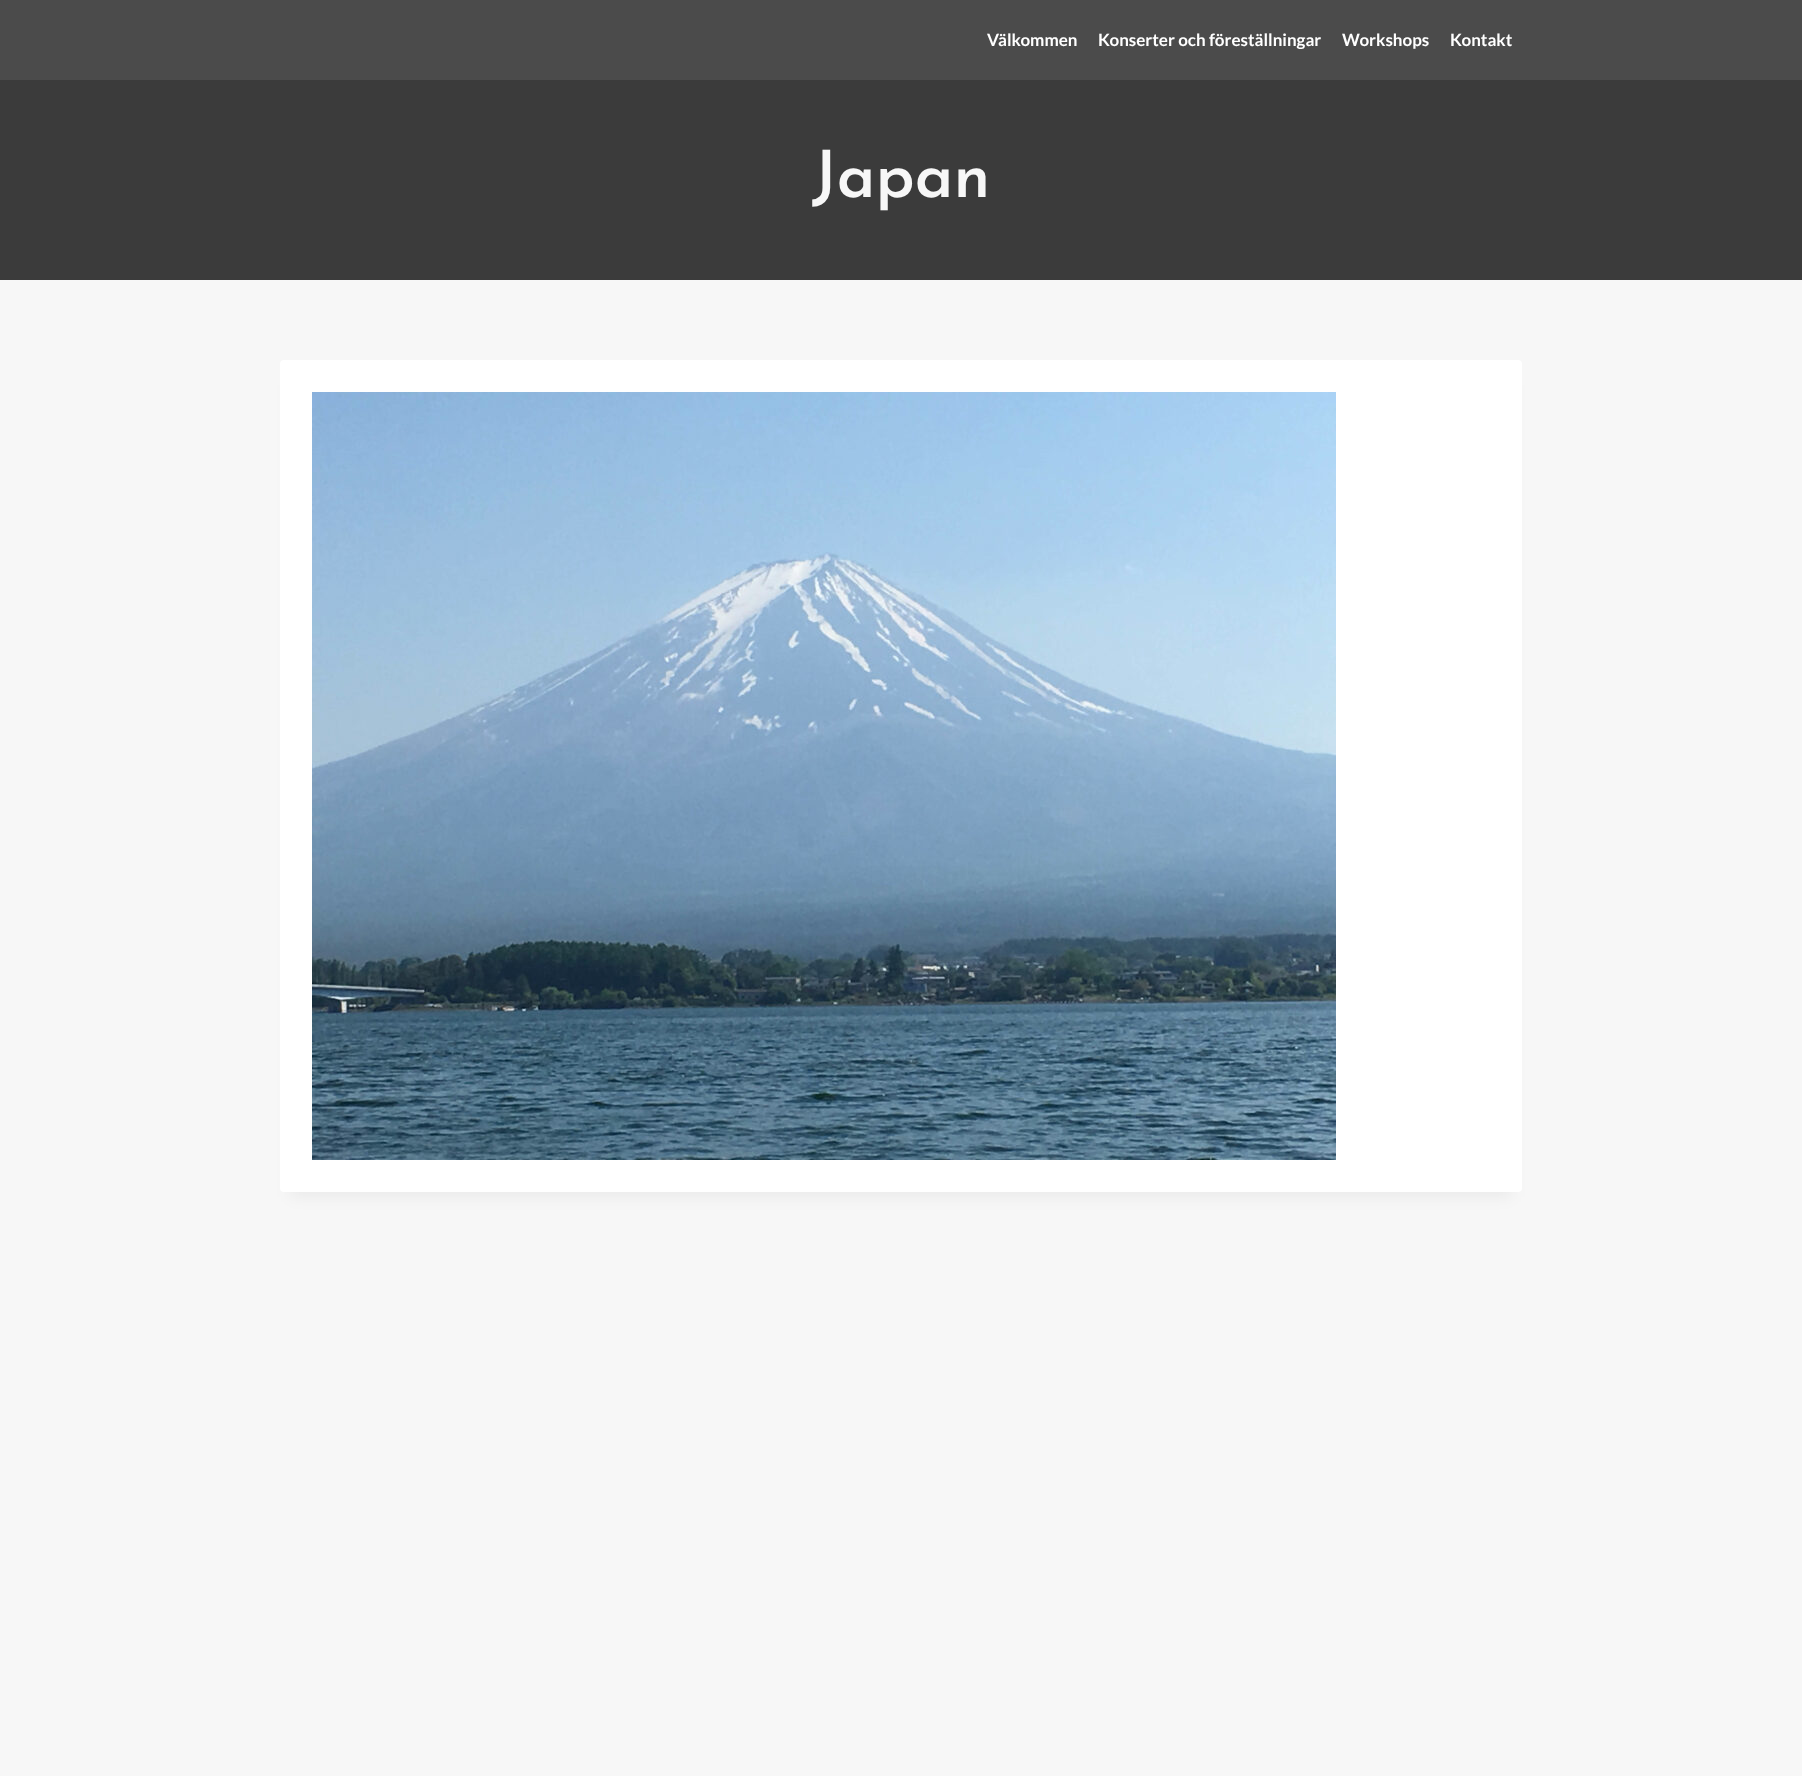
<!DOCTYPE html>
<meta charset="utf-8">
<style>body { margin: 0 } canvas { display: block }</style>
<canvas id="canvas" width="1802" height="1776"></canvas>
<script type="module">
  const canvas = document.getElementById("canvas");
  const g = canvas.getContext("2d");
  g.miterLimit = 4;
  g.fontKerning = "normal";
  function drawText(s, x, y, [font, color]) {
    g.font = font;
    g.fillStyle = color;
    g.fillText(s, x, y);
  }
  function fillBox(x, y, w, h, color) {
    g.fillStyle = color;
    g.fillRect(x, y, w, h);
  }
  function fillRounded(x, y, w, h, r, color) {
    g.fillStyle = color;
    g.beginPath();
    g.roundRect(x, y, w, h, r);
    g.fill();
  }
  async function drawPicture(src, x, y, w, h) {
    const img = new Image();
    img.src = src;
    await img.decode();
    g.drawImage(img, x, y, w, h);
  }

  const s1 = ["bold 17px Lato", "#FFFFFF"];
  const s2 = ["600 65px Josefin Sans", "#F7F7F7"];

  fillBox(0, 0, 1802, 1776, "#F7F7F7");
  fillBox(0, 0, 1802, 80, "#4B4B4B");
  drawText("Välkommen", 987, 46, s1);
  drawText("Konserter och föreställningar", 1098, 46, s1);
  drawText("Workshops", 1342, 46, s1);
  drawText("Kontakt", 1450, 46, s1);
  fillBox(0, 80, 1802, 200, "#3B3B3B");
  drawText("Japan", 812, 197, s2);
  g.fillStyle = "rgba(0, 0, 0, 0.05)";
  g.filter = "blur(7.5px)";
  g.beginPath();
  g.rect(290, 385, 1222, 812);
  g.fill();
  g.filter = "none";
  fillRounded(280, 360, 1242, 832, 4, "#FFFFFF");
  await drawPicture("pic1.png", 312, 392, 1024, 768);
</script>
